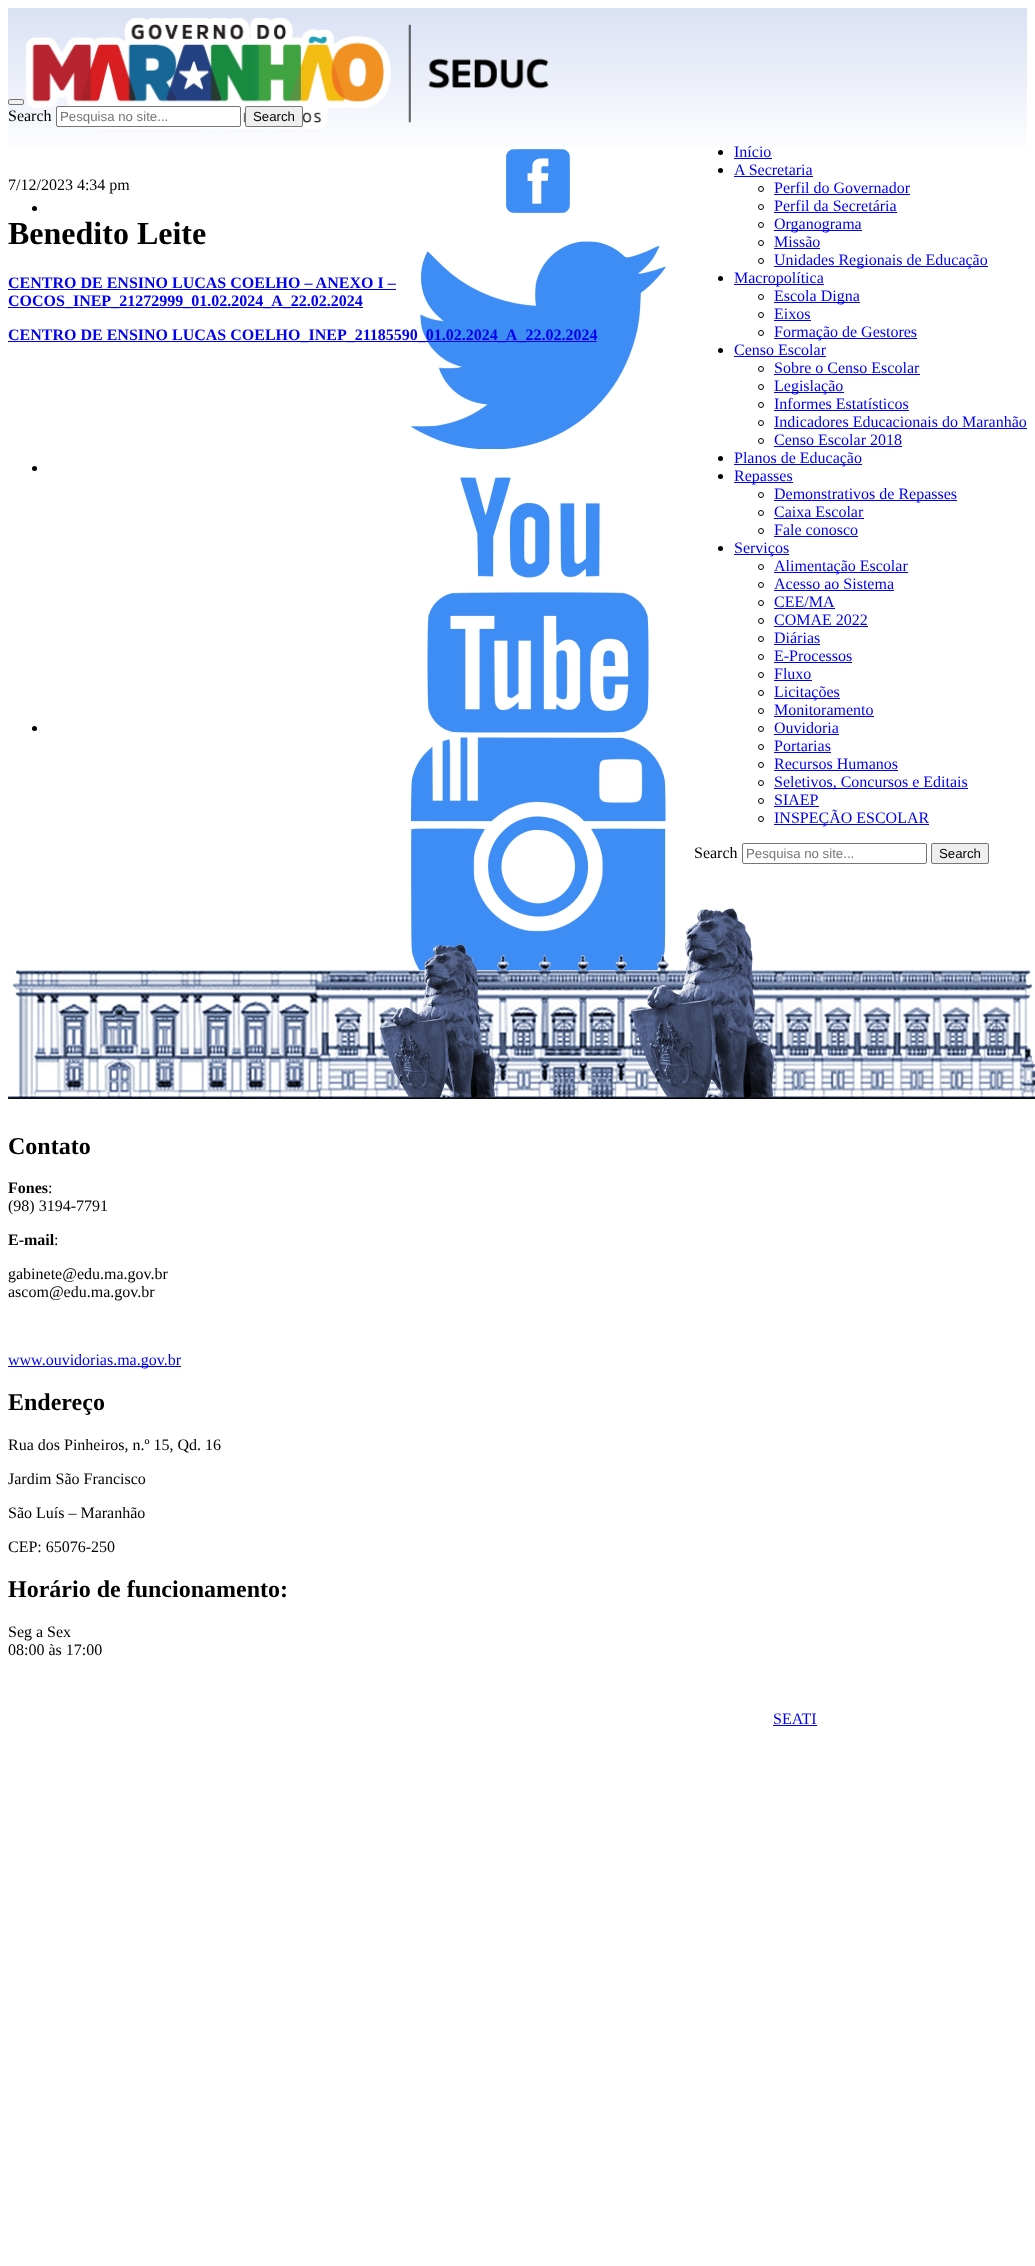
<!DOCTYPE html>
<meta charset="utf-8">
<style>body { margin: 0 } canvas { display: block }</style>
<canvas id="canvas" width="1035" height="2266"></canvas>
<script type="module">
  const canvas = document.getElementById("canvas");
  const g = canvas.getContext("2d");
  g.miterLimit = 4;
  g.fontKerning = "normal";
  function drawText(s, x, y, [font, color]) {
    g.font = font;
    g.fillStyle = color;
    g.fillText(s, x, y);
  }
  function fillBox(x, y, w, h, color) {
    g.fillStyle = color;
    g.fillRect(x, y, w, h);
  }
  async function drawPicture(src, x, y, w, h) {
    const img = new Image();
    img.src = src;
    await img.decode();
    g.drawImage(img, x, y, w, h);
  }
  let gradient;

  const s1 = ["16px Liberation Serif", "#000000"];
  const s2 = ["13.25px Liberation Sans", "#757575"];
  const s3 = ["13.25px Liberation Sans", "#000000"];
  const s4 = ["16px Liberation Serif", "#0000EE"];
  const s5 = ["bold 32px Liberation Serif", "#000000"];
  const s6 = ["bold 16px Liberation Serif", "#0000EE"];
  const s7 = ["bold 24px Liberation Serif", "#000000"];
  const s8 = ["bold 16px Liberation Serif", "#000000"];

  fillBox(0, 0, 1035, 2266, "#FFFFFF");
  gradient = g.createLinearGradient(518, 8, 518, 158);
  gradient.addColorStop(0, "#DAE1F4");
  gradient.addColorStop(1, "#FFFFFF");
  g.fillStyle = gradient;
  g.fillRect(8, 8, 1019, 140);
  await drawPicture("pic1.png", 25, 18, 524, 111);
  g.fillStyle = "#000000";
  g.beginPath();
  g.arc(34.5, 208.5, 2.5, 0, Math.PI * 2);
  g.fill();
  await drawPicture("pic2.png", 506, 149, 64, 64);
  await drawPicture("pic3.png", 410, 241, 256, 208);
  g.beginPath();
  g.arc(34.5, 468.5, 2.5, 0, Math.PI * 2);
  g.fill();
  g.beginPath();
  g.arc(34.5, 728.5, 2.5, 0, Math.PI * 2);
  g.fill();
  await drawPicture("pic4.png", 427, 477, 222, 256);
  await drawPicture("pic5.png", 411, 737, 255, 234);
  g.fillStyle = "#EFEFEF";
  g.beginPath();
  g.roundRect(8.5, 99.5, 15, 5, 1.5);
  g.fill();
  g.strokeStyle = "#767676";
  g.stroke();
  drawText("Search", 8, 121, s1);
  g.fillStyle = "#FFFFFF";
  g.beginPath();
  g.roundRect(56.5, 106.5, 184, 20, 1.5);
  g.fill();
  g.stroke();
  drawText("Pesquisa no site...", 60, 121, s2);
  g.fillStyle = "#EFEFEF";
  g.beginPath();
  g.roundRect(245.5, 106.5, 57, 20, 1.5);
  g.fill();
  g.stroke();
  drawText("Search", 253, 121, s3);
  g.beginPath();
  g.arc(720.5, 152.5, 2.5, 0, Math.PI * 2);
  g.fill();
  drawText("Início", 734, 157, s4);
  fillBox(734, 158, 38, 1, "#0000EE");
  g.fillStyle = "#000000";
  g.beginPath();
  g.arc(720.5, 170.5, 2.5, 0, Math.PI * 2);
  g.fill();
  drawText("A Secretaria", 734, 175, s4);
  fillBox(734, 176, 79, 1, "#0000EE");
  g.beginPath();
  g.arc(761, 189, 2.5, 0, Math.PI * 2);
  g.strokeStyle = "#000000";
  g.stroke();
  drawText("Perfil do Governador", 774, 193, s4);
  fillBox(774, 194, 136, 1, "#0000EE");
  g.beginPath();
  g.arc(761, 207, 2.5, 0, Math.PI * 2);
  g.stroke();
  drawText("Perfil da Secretária", 774, 211, s4);
  fillBox(774, 212, 123, 1, "#0000EE");
  g.beginPath();
  g.arc(761, 225, 2.5, 0, Math.PI * 2);
  g.stroke();
  fillBox(774, 230, 88, 1, "#0000EE");
  drawText("Organograma", 774, 229, s4);
  g.beginPath();
  g.arc(761, 243, 2.5, 0, Math.PI * 2);
  g.stroke();
  drawText("Missão", 774, 247, s4);
  fillBox(774, 248, 46, 1, "#0000EE");
  g.beginPath();
  g.arc(761, 261, 2.5, 0, Math.PI * 2);
  g.stroke();
  fillBox(774, 266, 214, 1, "#0000EE");
  drawText("Unidades Regionais de Educação", 774, 265, s4);
  g.fillStyle = "#000000";
  g.beginPath();
  g.arc(720.5, 278.5, 2.5, 0, Math.PI * 2);
  g.fill();
  fillBox(734, 284, 90, 1, "#0000EE");
  drawText("Macropolítica", 734, 283, s4);
  g.beginPath();
  g.arc(761, 297, 2.5, 0, Math.PI * 2);
  g.stroke();
  fillBox(774, 302, 86, 1, "#0000EE");
  drawText("Escola Digna", 774, 301, s4);
  g.beginPath();
  g.arc(761, 315, 2.5, 0, Math.PI * 2);
  g.stroke();
  drawText("Eixos", 774, 319, s4);
  fillBox(774, 320, 37, 1, "#0000EE");
  g.beginPath();
  g.arc(761, 333, 2.5, 0, Math.PI * 2);
  g.stroke();
  fillBox(774, 338, 143, 1, "#0000EE");
  drawText("Formação de Gestores", 774, 337, s4);
  g.fillStyle = "#000000";
  g.beginPath();
  g.arc(720.5, 350.5, 2.5, 0, Math.PI * 2);
  g.fill();
  drawText("Censo Escolar", 734, 355, s4);
  fillBox(734, 356, 92, 1, "#0000EE");
  g.beginPath();
  g.arc(761, 369, 2.5, 0, Math.PI * 2);
  g.stroke();
  drawText("Sobre o Censo Escolar", 774, 373, s4);
  fillBox(774, 374, 146, 1, "#0000EE");
  g.beginPath();
  g.arc(761, 387, 2.5, 0, Math.PI * 2);
  g.stroke();
  fillBox(774, 392, 70, 1, "#0000EE");
  drawText("Legislação", 774, 391, s4);
  g.beginPath();
  g.arc(761, 405, 2.5, 0, Math.PI * 2);
  g.stroke();
  drawText("Informes Estatísticos", 774, 409, s4);
  fillBox(774, 410, 135, 1, "#0000EE");
  g.beginPath();
  g.arc(761, 423, 2.5, 0, Math.PI * 2);
  g.stroke();
  drawText("Indicadores Educacionais do Maranhão", 774, 427, s4);
  fillBox(774, 428, 253, 1, "#0000EE");
  g.beginPath();
  g.arc(761, 441, 2.5, 0, Math.PI * 2);
  g.stroke();
  drawText("Censo Escolar 2018", 774, 445, s4);
  fillBox(774, 446, 128, 1, "#0000EE");
  g.fillStyle = "#000000";
  g.beginPath();
  g.arc(720.5, 458.5, 2.5, 0, Math.PI * 2);
  g.fill();
  fillBox(734, 464, 128, 1, "#0000EE");
  drawText("Planos de Educação", 734, 463, s4);
  g.fillStyle = "#000000";
  g.beginPath();
  g.arc(720.5, 476.5, 2.5, 0, Math.PI * 2);
  g.fill();
  fillBox(734, 482, 59, 1, "#0000EE");
  drawText("Repasses", 734, 481, s4);
  g.beginPath();
  g.arc(761, 495, 2.5, 0, Math.PI * 2);
  g.stroke();
  fillBox(774, 500, 183, 1, "#0000EE");
  drawText("Demonstrativos de Repasses", 774, 499, s4);
  g.beginPath();
  g.arc(761, 513, 2.5, 0, Math.PI * 2);
  g.stroke();
  drawText("Caixa Escolar", 774, 517, s4);
  fillBox(774, 518, 90, 1, "#0000EE");
  g.beginPath();
  g.arc(761, 531, 2.5, 0, Math.PI * 2);
  g.stroke();
  drawText("Fale conosco", 774, 535, s4);
  fillBox(774, 536, 84, 1, "#0000EE");
  g.fillStyle = "#000000";
  g.beginPath();
  g.arc(720.5, 548.5, 2.5, 0, Math.PI * 2);
  g.fill();
  fillBox(734, 554, 55, 1, "#0000EE");
  drawText("Serviços", 734, 553, s4);
  g.beginPath();
  g.arc(761, 567, 2.5, 0, Math.PI * 2);
  g.stroke();
  fillBox(774, 572, 134, 1, "#0000EE");
  drawText("Alimentação Escolar", 774, 571, s4);
  g.beginPath();
  g.arc(761, 585, 2.5, 0, Math.PI * 2);
  g.stroke();
  drawText("Acesso ao Sistema", 774, 589, s4);
  fillBox(774, 590, 120, 1, "#0000EE");
  g.beginPath();
  g.arc(761, 603, 2.5, 0, Math.PI * 2);
  g.stroke();
  drawText("CEE/MA", 774, 607, s4);
  fillBox(774, 608, 61, 1, "#0000EE");
  g.beginPath();
  g.arc(761, 621, 2.5, 0, Math.PI * 2);
  g.stroke();
  drawText("COMAE 2022", 774, 625, s4);
  fillBox(774, 626, 94, 1, "#0000EE");
  g.beginPath();
  g.arc(761, 639, 2.5, 0, Math.PI * 2);
  g.stroke();
  drawText("Diárias", 774, 643, s4);
  fillBox(774, 644, 46, 1, "#0000EE");
  g.beginPath();
  g.arc(761, 657, 2.5, 0, Math.PI * 2);
  g.stroke();
  drawText("E-Processos", 774, 661, s4);
  fillBox(774, 662, 78, 1, "#0000EE");
  g.beginPath();
  g.arc(761, 675, 2.5, 0, Math.PI * 2);
  g.stroke();
  drawText("Fluxo", 774, 679, s4);
  fillBox(774, 680, 38, 1, "#0000EE");
  g.beginPath();
  g.arc(761, 693, 2.5, 0, Math.PI * 2);
  g.stroke();
  fillBox(774, 698, 66, 1, "#0000EE");
  drawText("Licitações", 774, 697, s4);
  g.beginPath();
  g.arc(761, 711, 2.5, 0, Math.PI * 2);
  g.stroke();
  drawText("Monitoramento", 774, 715, s4);
  fillBox(774, 716, 100, 1, "#0000EE");
  g.beginPath();
  g.arc(761, 729, 2.5, 0, Math.PI * 2);
  g.stroke();
  drawText("Ouvidoria", 774, 733, s4);
  fillBox(774, 734, 65, 1, "#0000EE");
  g.beginPath();
  g.arc(761, 747, 2.5, 0, Math.PI * 2);
  g.stroke();
  drawText("Portarias", 774, 751, s4);
  fillBox(774, 752, 57, 1, "#0000EE");
  g.beginPath();
  g.arc(761, 765, 2.5, 0, Math.PI * 2);
  g.stroke();
  drawText("Recursos Humanos", 774, 769, s4);
  fillBox(774, 770, 124, 1, "#0000EE");
  g.beginPath();
  g.arc(761, 783, 2.5, 0, Math.PI * 2);
  g.stroke();
  fillBox(774, 788, 194, 1, "#0000EE");
  drawText("Seletivos, Concursos e Editais", 774, 787, s4);
  g.beginPath();
  g.arc(761, 801, 2.5, 0, Math.PI * 2);
  g.stroke();
  drawText("SIAEP", 774, 805, s4);
  fillBox(774, 806, 45, 1, "#0000EE");
  g.beginPath();
  g.arc(761, 819, 2.5, 0, Math.PI * 2);
  g.stroke();
  fillBox(774, 824, 155, 1, "#0000EE");
  drawText("INSPEÇÃO ESCOLAR", 774, 823, s4);
  drawText("Search", 694, 858, s1);
  g.beginPath();
  g.roundRect(742.5, 843.5, 184, 20, 1.5);
  g.strokeStyle = "#767676";
  g.stroke();
  drawText("Pesquisa no site...", 746, 858, s2);
  g.fillStyle = "#EFEFEF";
  g.beginPath();
  g.roundRect(931.5, 843.5, 57, 20, 1.5);
  g.fill();
  g.stroke();
  drawText("Search", 939, 858, s3);
  drawText("7/12/2023 4:34 pm", 8, 190, s1);
  drawText("Benedito Leite", 8, 244, s5);
  drawText("CENTRO DE ENSINO LUCAS COELHO – ANEXO I –", 8, 288, s6);
  fillBox(8, 289, 388, 1, "#0000EE");
  fillBox(8, 307, 355, 1, "#0000EE");
  drawText("COCOS_INEP_21272999_01.02.2024_A_22.02.2024", 8, 306, s6);
  fillBox(8, 341, 589, 1, "#0000EE");
  drawText("CENTRO DE ENSINO LUCAS COELHO_INEP_21185590_01.02.2024_A_22.02.2024", 8, 340, s6);
  await drawPicture("pic6.png", 8, 908, 1027, 191);
  drawText("Contato", 8, 1154, s7);
  drawText("Fones", 8, 1193, s8);
  drawText(":", 48, 1193, s1);
  drawText("(98) 3194-7791", 8, 1211, s1);
  drawText("E-mail", 8, 1245, s8);
  drawText(":", 54, 1245, s1);
  drawText("gabinete@edu.ma.gov.br", 8, 1279, s1);
  drawText("ascom@edu.ma.gov.br", 8, 1297, s1);
  fillBox(8, 1366, 173, 1, "#0000EE");
  drawText("www.ouvidorias.ma.gov.br", 8, 1365, s4);
  drawText("Endereço", 8, 1410, s7);
  drawText("Rua dos Pinheiros, n.º 15, Qd. 16", 8, 1450, s1);
  drawText("Jardim São Francisco", 8, 1484, s1);
  drawText("São Luís – Maranhão", 8, 1518, s1);
  drawText("CEP: 65076-250", 8, 1552, s1);
  drawText("Horário de funcionamento:", 8, 1597, s7);
  drawText("Seg a Sex", 8, 1637, s1);
  drawText("08:00 às 17:00", 8, 1655, s1);
  drawText("SEATI", 773, 1724, s4);
  fillBox(773, 1725, 44, 1, "#0000EE");
</script>
